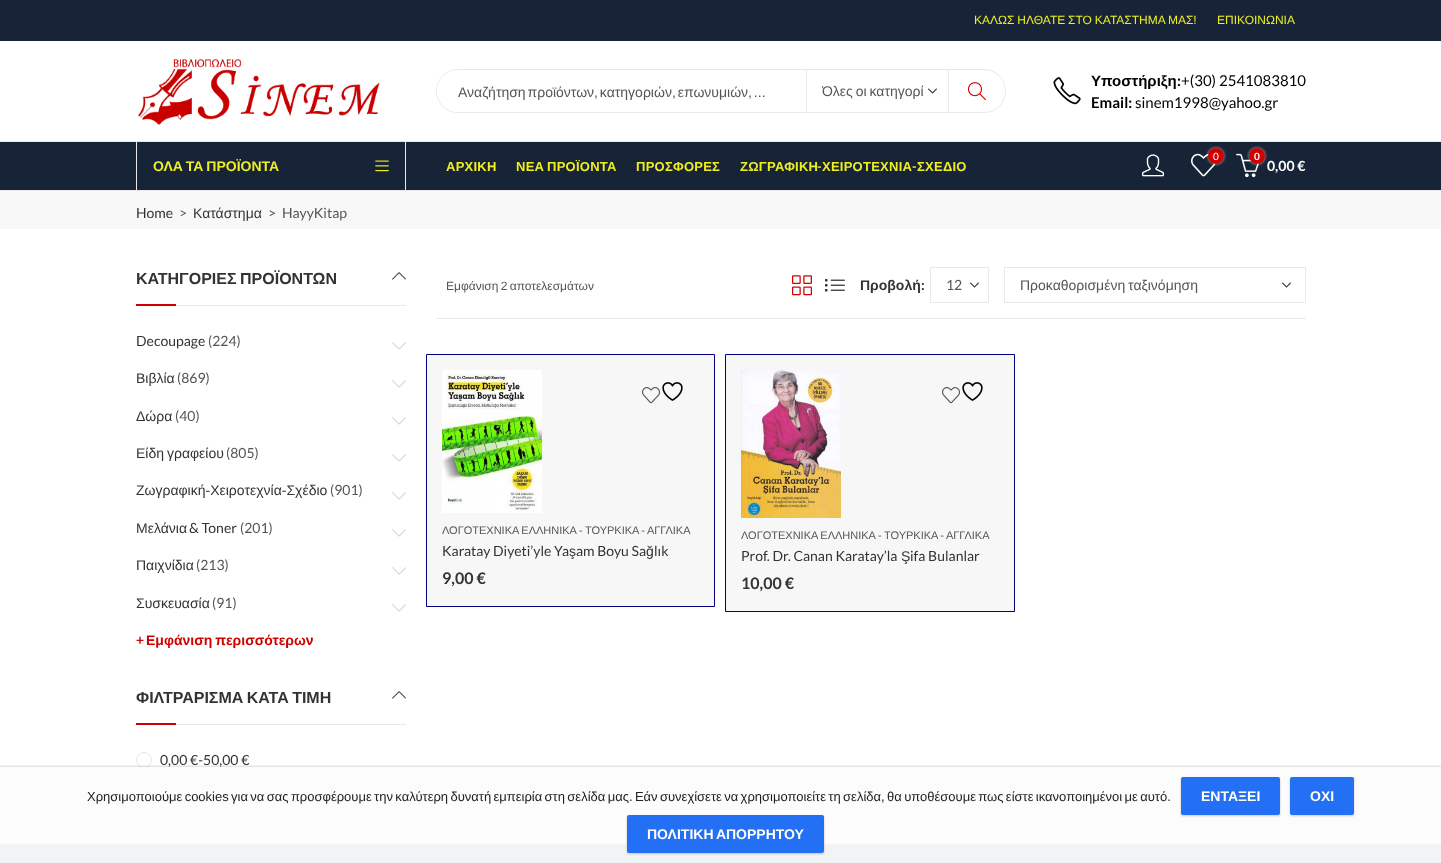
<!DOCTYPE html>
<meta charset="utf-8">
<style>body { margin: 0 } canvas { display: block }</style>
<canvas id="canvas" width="1441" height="863"></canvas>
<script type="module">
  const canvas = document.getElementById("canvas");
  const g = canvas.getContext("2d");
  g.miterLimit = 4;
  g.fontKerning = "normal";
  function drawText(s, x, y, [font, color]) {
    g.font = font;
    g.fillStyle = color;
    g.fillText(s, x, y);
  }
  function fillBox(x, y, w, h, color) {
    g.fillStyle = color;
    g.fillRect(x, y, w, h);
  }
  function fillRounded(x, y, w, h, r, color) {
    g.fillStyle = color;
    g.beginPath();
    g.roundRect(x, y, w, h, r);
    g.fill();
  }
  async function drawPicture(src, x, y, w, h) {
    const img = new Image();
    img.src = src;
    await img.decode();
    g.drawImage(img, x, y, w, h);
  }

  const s1 = ["12px Liberation Sans", "#EEEE22"];
  const s2 = ["14px Liberation Sans", "#555555"];
  const s3 = ["bold 15px Liberation Sans", "#000000"];
  const s4 = ["bold 15px Lato", "#000000"];
  const s5 = ["15px Lato", "#000000"];
  const s6 = ["bold 14px Liberation Sans", "#EEEE22"];
  const s7 = ["bold 13px Liberation Sans", "#EEEE22"];
  const s8 = ["bold 13px Lato", "#EEEE22"];
  const s9 = ["10px Lato", "#FFFFFF"];
  const s10 = ["bold 10px Lato", "#FFFFFF"];
  const s11 = ["bold 14px Lato", "#FFFFFF"];
  const s12 = ["14px Lato", "#333333"];
  const s13 = ["14px Lato", "#555555"];
  const s14 = ["14px Liberation Sans", "#333333"];
  const s15 = ["bold 16px Liberation Sans", "#333333"];
  const s16 = ["bold 14px Lato", "#D10000"];
  const s17 = ["bold 14px Liberation Sans", "#D10000"];
  const s18 = ["12px Liberation Sans", "#555555"];
  const s19 = ["bold 14px Liberation Sans", "#333333"];
  const s20 = ["bold 14px Lato", "#333333"];
  const s21 = ["11px Liberation Sans", "#555555"];
  const s22 = ["bold 16px Lato", "#333333"];
  const s23 = ["13px Liberation Sans", "#212121"];
  const s24 = ["bold 14px Liberation Sans", "#FFFFFF"];

  fillBox(0, 0, 1441, 863, "#FFFFFF");
  fillBox(0, 0, 1441, 41, "#172337");
  g.wordSpacing = "-0.5px";
  drawText("ΚΑΛΩΣ ΗΛΘΑΤΕ ΣΤΟ ΚΑΤΑΣΤΗΜΑ ΜΑΣ!", 974, 24, s1);
  g.wordSpacing = "0px";
  drawText("ΕΠΙΚΟΙΝΩΝΙΑ", 1217, 24, s1);
  await drawPicture("pic1.png", 138, 59, 242, 66);
  g.beginPath();
  g.roundRect(436.5, 69.5, 569, 43, 21.5);
  g.strokeStyle = "#E9E9E9";
  g.stroke();
  g.fillStyle = "#FFFFFF";
  g.beginPath();
  g.roundRect(437, 70, 370, 42, [21, 0, 0, 21]);
  g.fill();
  fillBox(806, 70, 1, 42, "#E9E9E9");
  g.wordSpacing = "-2px";
  drawText("Αναζήτηση προϊόντων, κατηγοριών, επωνυμιών, ...", 458, 97, s2);
  await drawPicture("pic2.png", 928, 88, 9, 6);
  fillBox(948, 70, 1, 42, "#E9E9E9");
  g.save();
  g.beginPath();
  g.rect(822, 80, 101, 22);
  g.clip();
  g.wordSpacing = "-1px";
  drawText("Όλες οι κατηγορί", 822, 96, s2);
  g.restore();
  await drawPicture("pic3.png", 967, 82, 19, 19);
  await drawPicture("pic4.png", 1053, 77, 28, 28);
  g.wordSpacing = "0px";
  drawText("Υποστήριξη", 1091, 86, s3);
  drawText(":", 1177, 86, s4);
  drawText("+(30) 2541083810", 1181, 86, s5);
  drawText("Email:", 1091, 108, s4);
  drawText("sinem1998@yahoo.gr", 1135, 108, s5);
  fillBox(0, 142, 1441, 48, "#172337");
  fillBox(0, 141, 1441, 1, "#E9E9E9");
  fillBox(0, 190, 1441, 1, "#E9E9E9");
  fillBox(405, 141, 1, 50, "#E9E9E9");
  fillBox(136, 141, 1, 50, "#E9E9E9");
  g.wordSpacing = "-1px";
  drawText("ΟΛΑ ΤΑ ΠΡΟΪΟΝΤΑ", 153, 171, s6);
  await drawPicture("pic5.png", 375, 160, 14, 12);
  g.letterSpacing = "0.25px";
  g.wordSpacing = "0px";
  drawText("ΑΡΧΙΚΗ", 446, 171, s7);
  g.wordSpacing = "-1px";
  drawText("ΝΕΑ ΠΡΟΪΟΝΤΑ", 516, 171, s7);
  g.wordSpacing = "0px";
  drawText("ΠΡΟΣΦΟΡΕΣ", 636, 171, s7);
  drawText("ΖΩΓΡΑΦΙΚΗ", 740, 171, s7);
  drawText("-", 817, 171, s8);
  drawText("ΧΕΙΡΟΤΕΧΝΙΑ", 822, 171, s7);
  drawText("-", 912, 171, s8);
  drawText("ΣΧΕΔΙΟ", 917, 171, s7);
  await drawPicture("pic6.png", 1142, 154, 22, 23);
  await drawPicture("pic7.png", 1191, 153, 25, 24);
  g.fillStyle = "rgba(255, 255, 255, 0.7)";
  g.filter = "blur(1.5px)";
  g.beginPath();
  g.roundRect(1208, 148, 16, 16, 8);
  g.fill();
  g.filter = "none";
  g.fillStyle = "#D10000";
  g.beginPath();
  g.arc(1216, 156, 8, 0, Math.PI * 2);
  g.fill();
  g.letterSpacing = "0px";
  drawText("0", 1213, 160, s9);
  await drawPicture("pic8.png", 1236, 153, 24, 25);
  g.fillStyle = "rgba(255, 255, 255, 0.7)";
  g.filter = "blur(1.5px)";
  g.beginPath();
  g.roundRect(1249, 148, 16, 16, 8);
  g.fill();
  g.filter = "none";
  g.fillStyle = "#D10000";
  g.beginPath();
  g.arc(1257, 156, 8, 0, Math.PI * 2);
  g.fill();
  drawText("0", 1254, 160, s10);
  drawText("0,00 €", 1267, 171, s11);
  fillBox(0, 191, 1441, 38, "#F8F8F8");
  drawText("Home", 136, 218, s12);
  drawText(">", 179, 218, s13);
  drawText("Κατάστημα", 193, 218, s14);
  drawText(">", 268, 218, s13);
  drawText("HayyKitap", 282, 218, s13);
  fillBox(176, 305, 230, 1, "#E9E9E9");
  g.wordSpacing = "-1px";
  drawText("ΚΑΤΗΓΟΡΙΕΣ ΠΡΟΪΟΝΤΩΝ", 136, 284, s15);
  await drawPicture("pic9.png", 392, 272, 14, 8);
  fillBox(136, 304, 40, 2, "#D10000");
  g.wordSpacing = "0px";
  drawText("Decoupage", 136, 346, s12);
  await drawPicture("pic10.png", 392, 342, 14, 8);
  drawText("(224)", 208, 346, s13);
  drawText("Βιβλία", 136, 383, s14);
  await drawPicture("pic10.png", 392, 380, 14, 8);
  drawText("(869)", 177, 383, s13);
  drawText("Δώρα", 136, 421, s14);
  await drawPicture("pic10.png", 392, 417, 14, 8);
  drawText("(40)", 175, 421, s13);
  g.wordSpacing = "-1px";
  drawText("Είδη γραφείου", 136, 458, s14);
  await drawPicture("pic10.png", 392, 454, 14, 8);
  g.wordSpacing = "0px";
  drawText("(805)", 226, 458, s13);
  drawText("Ζωγραφική-Χειροτεχνία-Σχέδιο", 136, 495, s14);
  await drawPicture("pic10.png", 392, 492, 14, 8);
  drawText("(901)", 330, 495, s13);
  drawText("Μελάνια", 136, 533, s14);
  drawText("& Toner", 189, 533, s12);
  await drawPicture("pic10.png", 392, 529, 14, 8);
  drawText("(201)", 240, 533, s13);
  drawText("Παιχνίδια", 136, 570, s14);
  await drawPicture("pic10.png", 392, 567, 14, 8);
  drawText("(213)", 196, 570, s13);
  drawText("Συσκευασία", 136, 608, s14);
  await drawPicture("pic10.png", 392, 604, 14, 8);
  drawText("(91)", 212, 608, s13);
  drawText("+", 136, 645, s16);
  g.wordSpacing = "-1px";
  drawText("Εμφάνιση περισσότερων", 146, 645, s17);
  fillBox(176, 724, 230, 1, "#E9E9E9");
  drawText("ΦΙΛΤΡΑΡΙΣΜΑ ΚΑΤΑ ΤΙΜΗ", 136, 703, s15);
  await drawPicture("pic9.png", 392, 691, 14, 8);
  fillBox(136, 723, 40, 2, "#D10000");
  g.beginPath();
  g.arc(144, 760, 7.5, 0, Math.PI * 2);
  g.stroke();
  g.wordSpacing = "0px";
  drawText("0,00 €-50,00 €", 160, 765, s12);
  fillBox(436, 318, 870, 1, "#E9E9E9");
  g.wordSpacing = "-1px";
  drawText("Εμφάνιση 2 αποτελεσμάτων", 446, 290, s18);
  await drawPicture("pic11.png", 792, 275, 20, 21);
  await drawPicture("pic12.png", 825, 279, 20, 13);
  g.wordSpacing = "0px";
  drawText("Προβολή", 860, 290, s19);
  drawText(":", 921, 290, s20);
  await drawPicture("pic2.png", 970, 282, 9, 6);
  g.strokeRect(930.5, 267.5, 58, 35);
  drawText("12", 946, 290, s13);
  await drawPicture("pic2.png", 1282, 282, 9, 6);
  g.strokeRect(1004.5, 267.5, 301, 35);
  g.wordSpacing = "-1px";
  drawText("Προκαθορισμένη ταξινόμηση", 1020, 290, s2);
  g.fillStyle = "#F7F7F7";
  g.beginPath();
  g.rect(426.5, 354.5, 288, 252);
  g.fill();
  g.strokeStyle = "#000080";
  g.stroke();
  await drawPicture("pic13.png", 442, 370, 100, 143);
  await drawPicture("pic14.png", 642, 387, 18, 17);
  await drawPicture("pic15.png", 662, 382, 21, 19);
  g.wordSpacing = "-0.5px";
  drawText("ΛΟΓΟΤΕΧΝΙΚΑ ΕΛΛΗΝΙΚΑ - ΤΟΥΡΚΙΚΑ - ΑΓΓΛΙΚΑ", 442, 534, s21);
  g.wordSpacing = "0px";
  drawText("Karatay Diyeti’yle Ya", 442, 556, s12);
  drawText("ş", 569, 556, s14);
  drawText("am Boyu Sa", 576, 556, s12);
  drawText("ğ", 646, 556, s14);
  drawText("lık", 654, 556, s12);
  drawText("9,00 €", 442, 584, s22);
  g.fillStyle = "#F7F7F7";
  g.beginPath();
  g.rect(725.5, 354.5, 289, 257);
  g.fill();
  g.stroke();
  await drawPicture("pic16.png", 741, 370, 100, 148);
  await drawPicture("pic14.png", 942, 387, 18, 17);
  await drawPicture("pic15.png", 962, 382, 21, 19);
  g.wordSpacing = "-0.5px";
  drawText("ΛΟΓΟΤΕΧΝΙΚΑ ΕΛΛΗΝΙΚΑ - ΤΟΥΡΚΙΚΑ - ΑΓΓΛΙΚΑ", 741, 539, s21);
  g.wordSpacing = "0px";
  drawText("Prof. Dr. Canan Karatay’la", 741, 561, s12);
  drawText("Ş", 901, 561, s14);
  drawText("ifa Bulanlar", 910, 561, s12);
  drawText("10,00 €", 741, 589, s22);
  fillBox(0, 844, 1441, 19, "#172337");
  g.save();
  g.beginPath();
  g.rect(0, 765, 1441, 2);
  g.clip();
  g.fillStyle = "rgba(0, 0, 0, 0.15)";
  g.filter = "blur(1px)";
  g.beginPath();
  g.rect(-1, 766, 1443, 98);
  g.fill();
  g.filter = "none";
  g.restore();
  fillBox(0, 767, 1441, 96, "rgba(252, 252, 252, 0.96)");
  g.wordSpacing = "-1.25px";
  drawText("Χρησιμοποιούμε cookies για να σας προσφέρουμε την καλύτερη δυνατή εμπειρία στη σελίδα μας. Εάν συνεχίσετε να χρησιμοποιείτε τη σελίδα, θα υποθέσουμε πως είστε ικανοποιημένοι με αυτό.", 87, 801, s23);
  g.fillStyle = "rgba(0, 0, 0, 0.2)";
  g.filter = "blur(1px)";
  g.beginPath();
  g.roundRect(1181, 778, 99, 38, 2);
  g.fill();
  g.filter = "none";
  fillRounded(1181, 777, 99, 38, 2, "#2370F4");
  g.wordSpacing = "0px";
  drawText("ΕΝΤΑΞΕΙ", 1201, 801, s24);
  g.fillStyle = "rgba(0, 0, 0, 0.2)";
  g.filter = "blur(1px)";
  g.beginPath();
  g.roundRect(1290, 778, 64, 38, 2);
  g.fill();
  g.filter = "none";
  fillRounded(1290, 777, 64, 38, 2, "#2370F4");
  drawText("ΟΧΙ", 1310, 801, s24);
  g.fillStyle = "rgba(0, 0, 0, 0.2)";
  g.filter = "blur(1px)";
  g.beginPath();
  g.roundRect(627, 816, 197, 38, 2);
  g.fill();
  g.filter = "none";
  fillRounded(627, 815, 197, 38, 2, "#2370F4");
  g.wordSpacing = "-1px";
  drawText("ΠΟΛΙΤΙΚΗ ΑΠΟΡΡΗΤΟΥ", 647, 839, s24);
</script>
